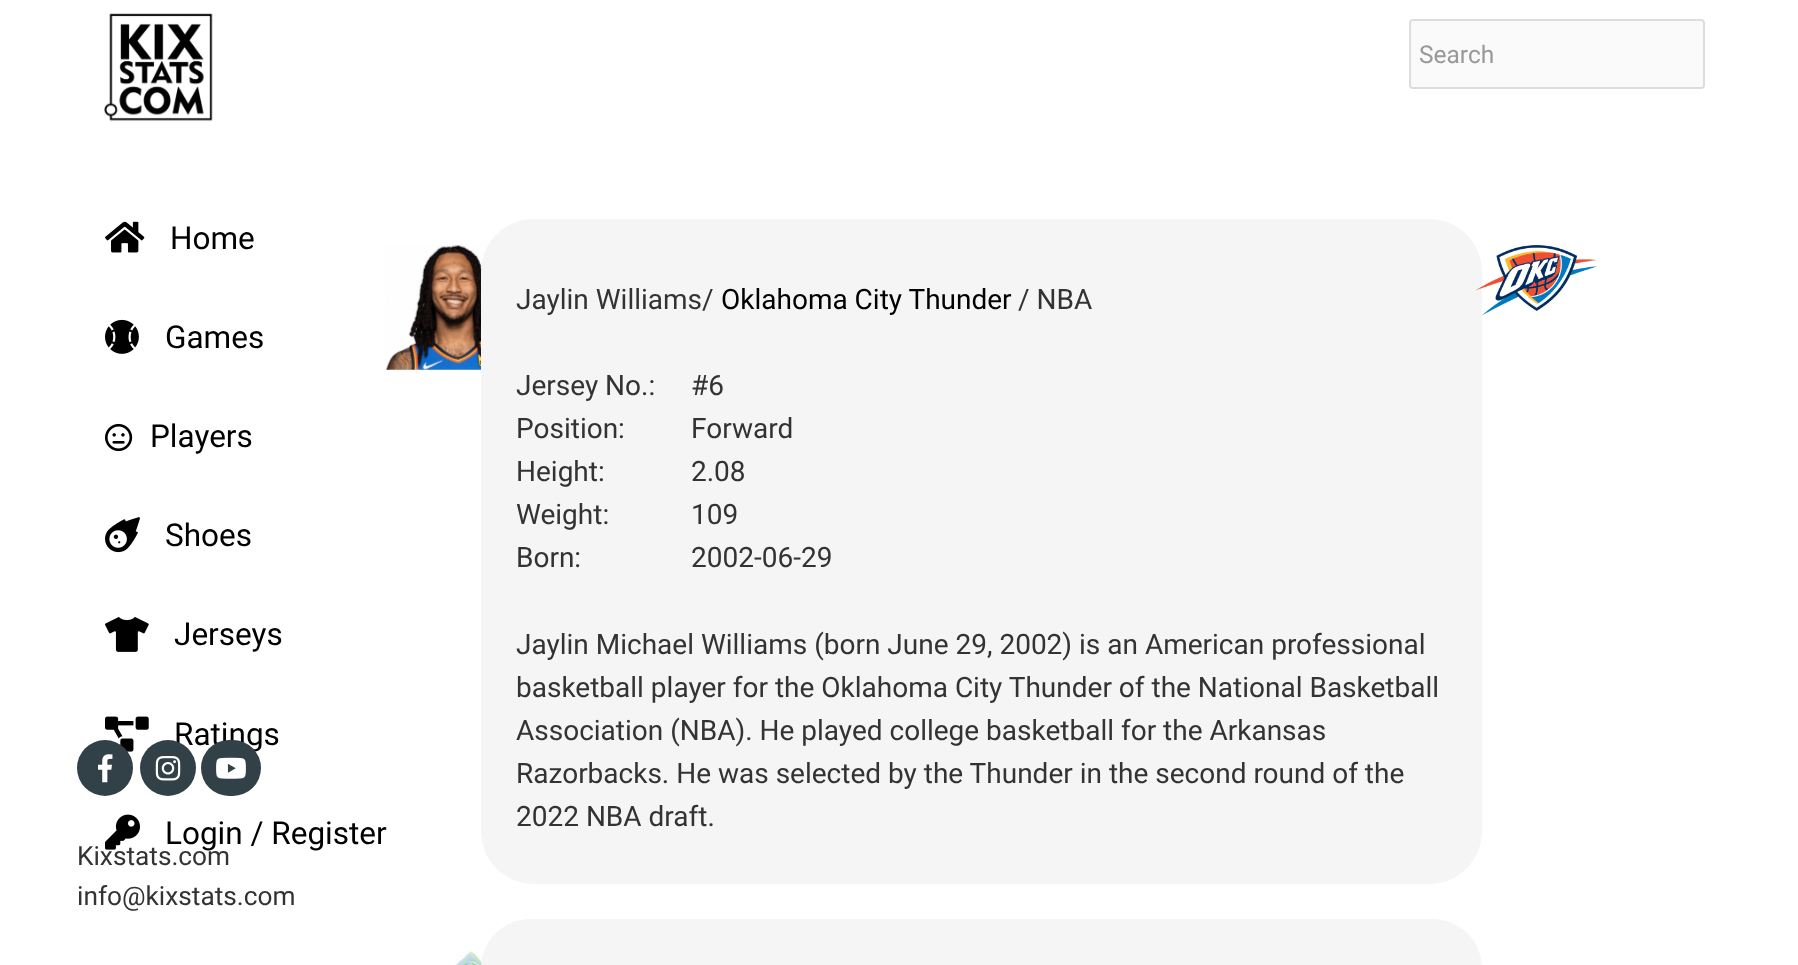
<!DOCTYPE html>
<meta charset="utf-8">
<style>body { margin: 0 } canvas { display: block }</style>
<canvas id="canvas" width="1798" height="965"></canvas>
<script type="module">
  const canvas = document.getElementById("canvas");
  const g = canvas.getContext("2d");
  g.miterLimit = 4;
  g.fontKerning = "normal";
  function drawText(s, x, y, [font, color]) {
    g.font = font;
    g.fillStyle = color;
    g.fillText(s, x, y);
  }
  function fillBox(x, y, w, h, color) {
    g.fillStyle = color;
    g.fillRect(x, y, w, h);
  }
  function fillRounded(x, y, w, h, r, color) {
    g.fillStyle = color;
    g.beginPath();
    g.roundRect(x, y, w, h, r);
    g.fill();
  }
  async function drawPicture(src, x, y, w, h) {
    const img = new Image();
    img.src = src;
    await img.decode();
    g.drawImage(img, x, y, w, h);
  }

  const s1 = ["24.5px Roboto", "#999999"];
  const s2 = ["31.5px Roboto", "#000000"];
  const s3 = ["26.25px Roboto", "#333333"];
  const s4 = ["28px Roboto", "#333333"];
  const s5 = ["28px Roboto", "#000000"];

  fillBox(0, 0, 1798, 965, "#FFFFFF");
  await drawPicture("pic1.png", 104, 13, 109, 109);
  g.fillStyle = "#FAFAFA";
  g.beginPath();
  g.roundRect(1410, 20, 294, 68, 3);
  g.fill();
  g.strokeStyle = "#DDDDDD";
  g.lineWidth = 2;
  g.stroke();
  drawText("Search", 1419, 63, s1);
  await drawPicture("pic2.png", 105, 221, 40, 32);
  drawText("Home", 170, 249, s2);
  await drawPicture("pic3.png", 105, 319, 34, 35);
  drawText("Games", 165, 348, s2);
  await drawPicture("pic4.png", 105, 423, 28, 29);
  drawText("Players", 150, 447, s2);
  await drawPicture("pic5.png", 105, 517, 35, 36);
  drawText("Shoes", 165, 546, s2);
  await drawPicture("pic6.png", 105, 617, 44, 35);
  drawText("Jerseys", 174, 645, s2);
  await drawPicture("pic7.png", 105, 716, 44, 36);
  drawText("Ratings", 174, 745, s2);
  await drawPicture("pic8.png", 105, 814, 35, 36);
  drawText("Login / Register", 165, 844, s2);
  g.fillStyle = "#324148";
  g.beginPath();
  g.arc(105, 768, 28, 0, Math.PI * 2);
  g.fill();
  await drawPicture("pic9.png", 98, 754, 15, 29);
  g.beginPath();
  g.arc(168, 768, 28, 0, Math.PI * 2);
  g.fill();
  await drawPicture("pic10.png", 155, 756, 26, 25);
  fillRounded(201, 740, 60, 56, 28, "#324148");
  await drawPicture("pic11.png", 216, 757, 30, 22);
  drawText("Kixstats.com", 77, 865, s3);
  drawText("info@kixstats.com", 77, 905, s3);
  await drawPicture("pic12.png", 385, 244, 104, 127);
  fillRounded(481, 219, 1001, 665, 53, "#F5F5F5");
  await drawPicture("pic13.png", 1476, 245, 121, 71);
  drawText("Jaylin Williams/", 516, 309, s4);
  drawText("Oklahoma City Thunder", 721, 309, s5);
  drawText("/ NBA", 1018, 309, s4);
  drawText("Jersey No.:", 516, 395, s4);
  drawText("#6", 691, 395, s4);
  drawText("Position:", 516, 438, s4);
  drawText("Forward", 691, 438, s4);
  drawText("Height:", 516, 481, s4);
  drawText("2.08", 691, 481, s4);
  drawText("Weight:", 516, 524, s4);
  drawText("109", 691, 524, s4);
  drawText("Born:", 516, 567, s4);
  drawText("2002-06-29", 691, 567, s4);
  drawText("Jaylin Michael Williams (born June 29, 2002) is an American professional", 516, 654, s4);
  drawText("basketball player for the Oklahoma City Thunder of the National Basketball", 516, 697, s4);
  drawText("Association (NBA). He played college basketball for the Arkansas", 516, 740, s4);
  drawText("Razorbacks. He was selected by the Thunder in the second round of the", 516, 783, s4);
  drawText("2022 NBA draft.", 516, 826, s4);
  await drawPicture("pic14.png", 455, 951, 29, 14);
  fillRounded(481, 919, 1001, 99, 53, "#F5F5F5");
</script>
